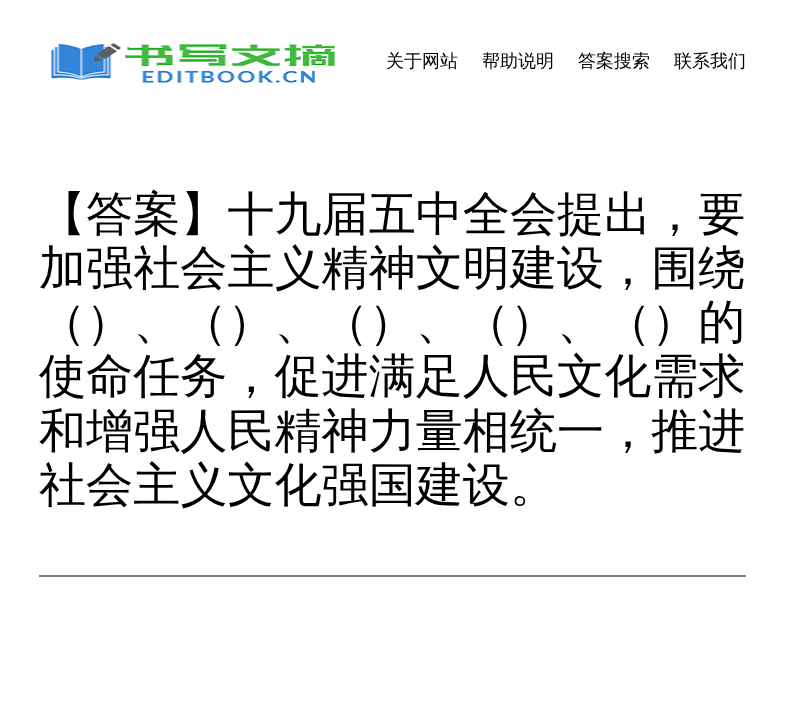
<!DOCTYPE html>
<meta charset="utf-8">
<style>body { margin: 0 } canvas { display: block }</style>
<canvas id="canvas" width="785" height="717"></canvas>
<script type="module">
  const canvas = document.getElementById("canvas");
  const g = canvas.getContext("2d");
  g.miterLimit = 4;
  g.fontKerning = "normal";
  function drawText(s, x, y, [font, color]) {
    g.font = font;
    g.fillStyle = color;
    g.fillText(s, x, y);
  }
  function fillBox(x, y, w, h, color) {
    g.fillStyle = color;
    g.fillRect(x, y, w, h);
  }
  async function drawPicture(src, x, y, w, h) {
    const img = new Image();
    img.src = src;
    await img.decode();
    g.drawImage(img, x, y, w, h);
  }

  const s1 = ["500 18px WenQuanYi Zen Hei", "#000000"];
  const s2 = ["500 47.1px WenQuanYi Zen Hei", "#000000"];

  fillBox(0, 0, 785, 717, "#FFFFFF");
  await drawPicture("pic1.png", 51, 43, 284, 40);
  drawText("关于网站", 386, 67, s1);
  drawText("帮助说明", 482, 67, s1);
  drawText("答案搜索", 578, 67, s1);
  drawText("联系我们", 674, 67, s1);
  drawText("【答案】十九届五中全会提出，要", 39, 230, s2);
  drawText("加强社会主义精神文明建设，围绕", 39, 284, s2);
  drawText("（）、（）、（）、（）、（）的", 39, 338, s2);
  drawText("使命任务，促进满足人民文化需求", 39, 392, s2);
  drawText("和增强人民精神力量相统一，推进", 39, 447, s2);
  drawText("社会主义文化强国建设。", 39, 501, s2);
  fillBox(39, 575, 707, 2, "#808080");
</script>
